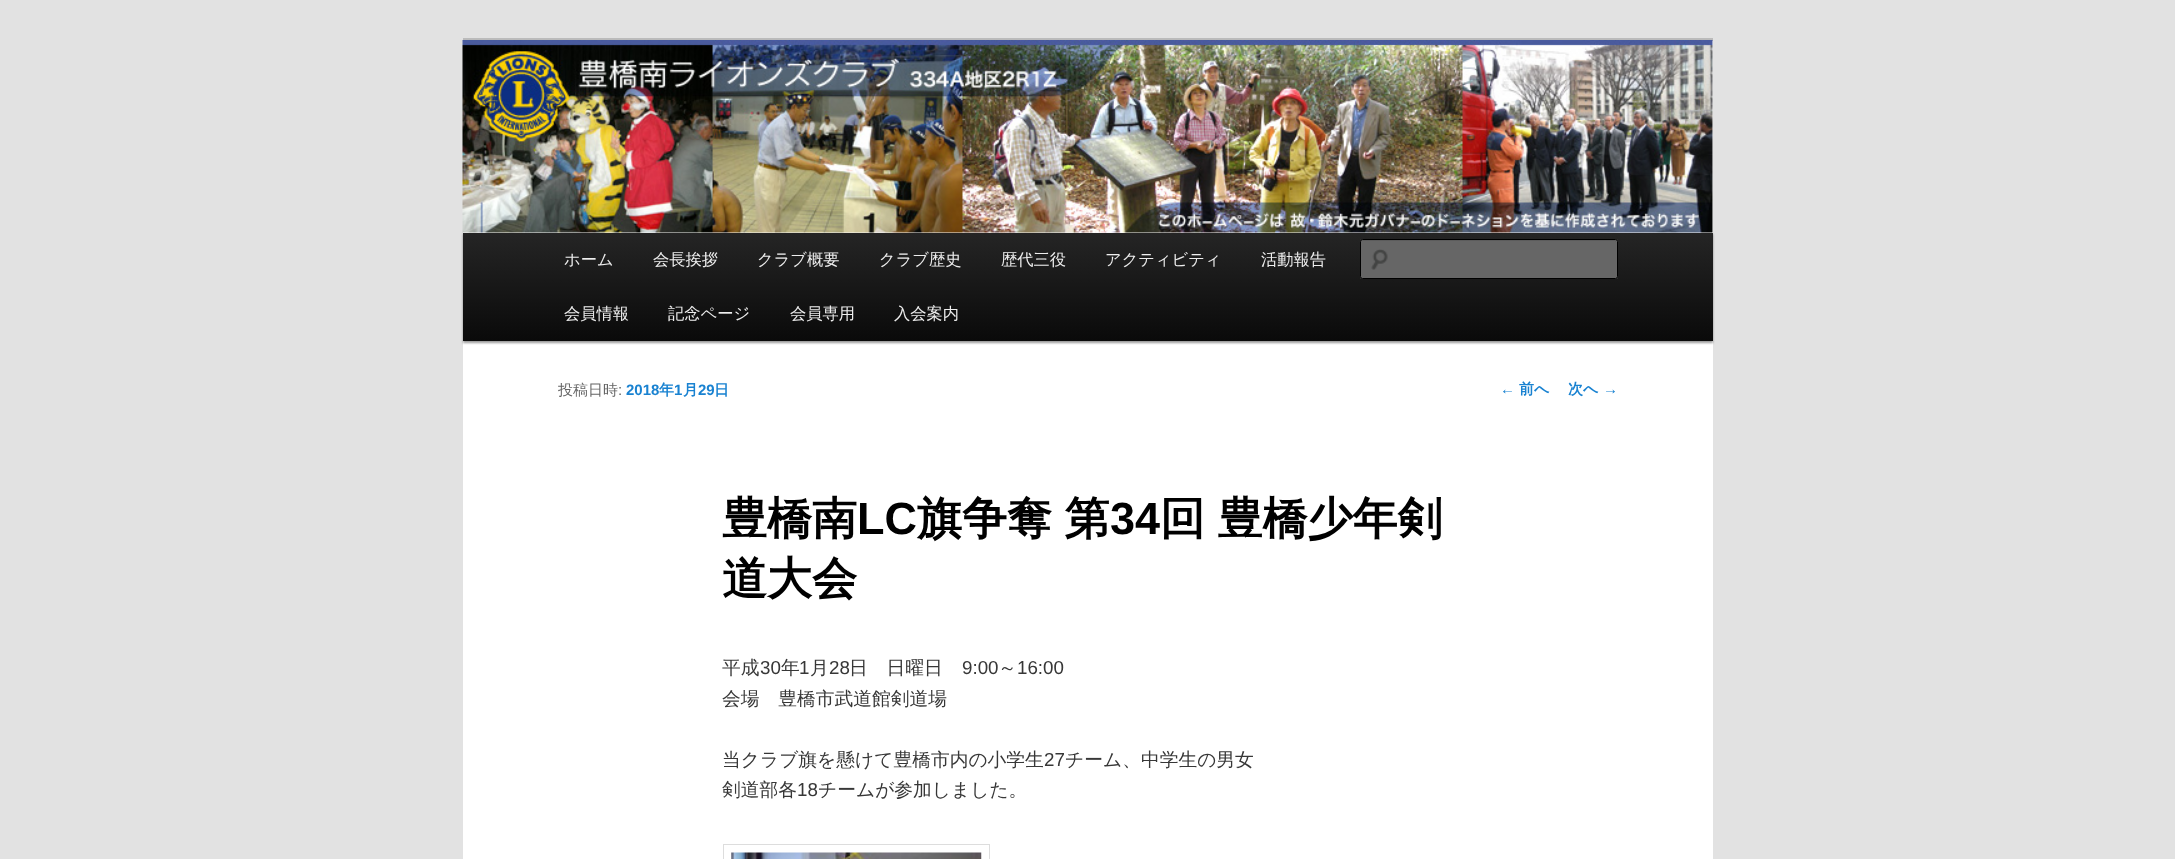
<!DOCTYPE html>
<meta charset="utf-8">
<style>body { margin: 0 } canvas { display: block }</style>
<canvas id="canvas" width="2175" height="859"></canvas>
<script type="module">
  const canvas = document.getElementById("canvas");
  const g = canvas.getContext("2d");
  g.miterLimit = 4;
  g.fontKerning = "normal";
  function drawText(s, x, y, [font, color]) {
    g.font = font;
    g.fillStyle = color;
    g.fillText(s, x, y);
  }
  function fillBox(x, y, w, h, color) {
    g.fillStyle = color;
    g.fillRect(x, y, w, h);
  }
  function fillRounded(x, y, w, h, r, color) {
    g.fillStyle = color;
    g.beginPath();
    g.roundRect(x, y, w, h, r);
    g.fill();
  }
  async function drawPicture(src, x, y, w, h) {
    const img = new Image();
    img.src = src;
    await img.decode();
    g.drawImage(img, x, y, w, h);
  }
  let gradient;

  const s1 = ["500 16.25px WenQuanYi Zen Hei", "#EEEEEE"];
  const s2 = ["500 15px WenQuanYi Zen Hei", "#666666"];
  const s3 = ["15px Liberation Sans", "#666666"];
  const s4 = ["bold 15px Liberation Sans", "#1982D1"];
  const s5 = ["bold 15px WenQuanYi Zen Hei", "#1982D1"];
  const s6 = ["bold 45px WenQuanYi Zen Hei", "#000000"];
  const s7 = ["bold 45px Liberation Sans", "#000000"];
  const s8 = ["500 18.75px WenQuanYi Zen Hei", "#373737"];
  const s9 = ["18.75px Liberation Sans", "#373737"];
  const s10 = ["15px Liberation Sans", "#1982D1"];

  fillBox(0, 0, 2175, 859, "#E2E2E2");
  fillBox(463, 41, 1250, 818, "#FFFFFF");
  fillBox(463, 38, 1250, 3, "#BBBBBB");
  g.fillStyle = "rgba(0, 0, 0, 0.4)";
  g.filter = "blur(1px)";
  g.beginPath();
  g.rect(463, 234, 1250, 109);
  g.fill();
  g.filter = "none";
  await drawPicture("pic1.png", 462, 40, 1251, 193);
  gradient = g.createLinearGradient(1088, 232, 1088, 341);
  gradient.addColorStop(0, "#252525");
  gradient.addColorStop(1, "#0A0A0A");
  g.fillStyle = gradient;
  g.fillRect(463, 233, 1250, 108);
  drawText("ホーム", 564, 265, s1);
  drawText("会長挨拶", 653, 265, s1);
  drawText("クラブ概要", 757, 265, s1);
  drawText("クラブ歴史", 879, 265, s1);
  drawText("歴代三役", 1001, 265, s1);
  drawText("アクティビティ", 1105, 265, s1);
  drawText("活動報告", 1261, 265, s1);
  drawText("会員情報", 564, 319, s1);
  drawText("記念ページ", 668, 319, s1);
  drawText("会員専用", 790, 319, s1);
  drawText("入会案内", 894, 319, s1);
  fillRounded(1360, 239, 258, 40, 2.5, "#666666");
  await drawPicture("pic2.png", 1371, 249, 17, 21);
  g.fillStyle = "#5C5C5C";
  g.beginPath();
  g.moveTo(1362, 241);
  g.lineTo(1615, 241);
  g.lineTo(1616, 242);
  g.lineTo(1616, 240);
  g.lineTo(1362, 240);
  g.bezierCurveTo(1361, 240, 1361, 241, 1361, 242);
  g.closePath();
  g.fill();
  g.beginPath();
  g.roundRect(1360.5, 239.5, 257, 39, 2);
  g.strokeStyle = "#000000";
  g.stroke();
  drawText("投稿日時", 558, 395, s2);
  drawText(":", 618, 395, s3);
  drawText("2018", 626, 395, s4);
  drawText("年", 659, 395, s5);
  drawText("1", 674, 395, s4);
  drawText("月", 683, 395, s5);
  drawText("29", 698, 395, s4);
  drawText("日", 714, 395, s5);
  drawText("豊橋南", 722, 534, s6);
  drawText("LC", 857, 534, s7);
  g.wordSpacing = "-1px";
  drawText("旗争奪 第", 917, 534, s6);
  g.wordSpacing = "0px";
  drawText("34", 1110, 534, s7);
  g.wordSpacing = "-1px";
  drawText("回 豊橋少年剣", 1160, 534, s6);
  g.wordSpacing = "0px";
  drawText("道大会", 722, 594, s6);
  drawText("平成", 722, 674, s8);
  drawText("30", 760, 674, s9);
  drawText("年", 781, 674, s8);
  drawText("1", 799, 674, s9);
  drawText("月", 810, 674, s8);
  drawText("28", 829, 674, s9);
  drawText("日　日曜日", 849, 674, s8);
  drawText("9:00", 962, 674, s9);
  drawText("～", 998, 674, s8);
  drawText("16:00", 1017, 674, s9);
  drawText("会場　豊橋市武道館剣道場", 722, 705, s8);
  drawText("当クラブ旗を懸けて豊橋市内の小学生", 722, 766, s8);
  drawText("27", 1044, 766, s9);
  drawText("チーム、中学生の男女", 1065, 766, s8);
  drawText("剣道部各", 722, 796, s8);
  drawText("18", 797, 796, s9);
  drawText("チームが参加しました。", 818, 796, s8);
  g.strokeStyle = "#DDDDDD";
  g.strokeRect(723.5, 844.5, 266, 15);
  await drawPicture("pic3.png", 731, 852, 251, 7);
  drawText("←", 1500, 394, s10);
  drawText("前へ", 1519, 394, s5);
  drawText("次へ", 1568, 394, s5);
  drawText("→", 1603, 394, s10);
</script>
